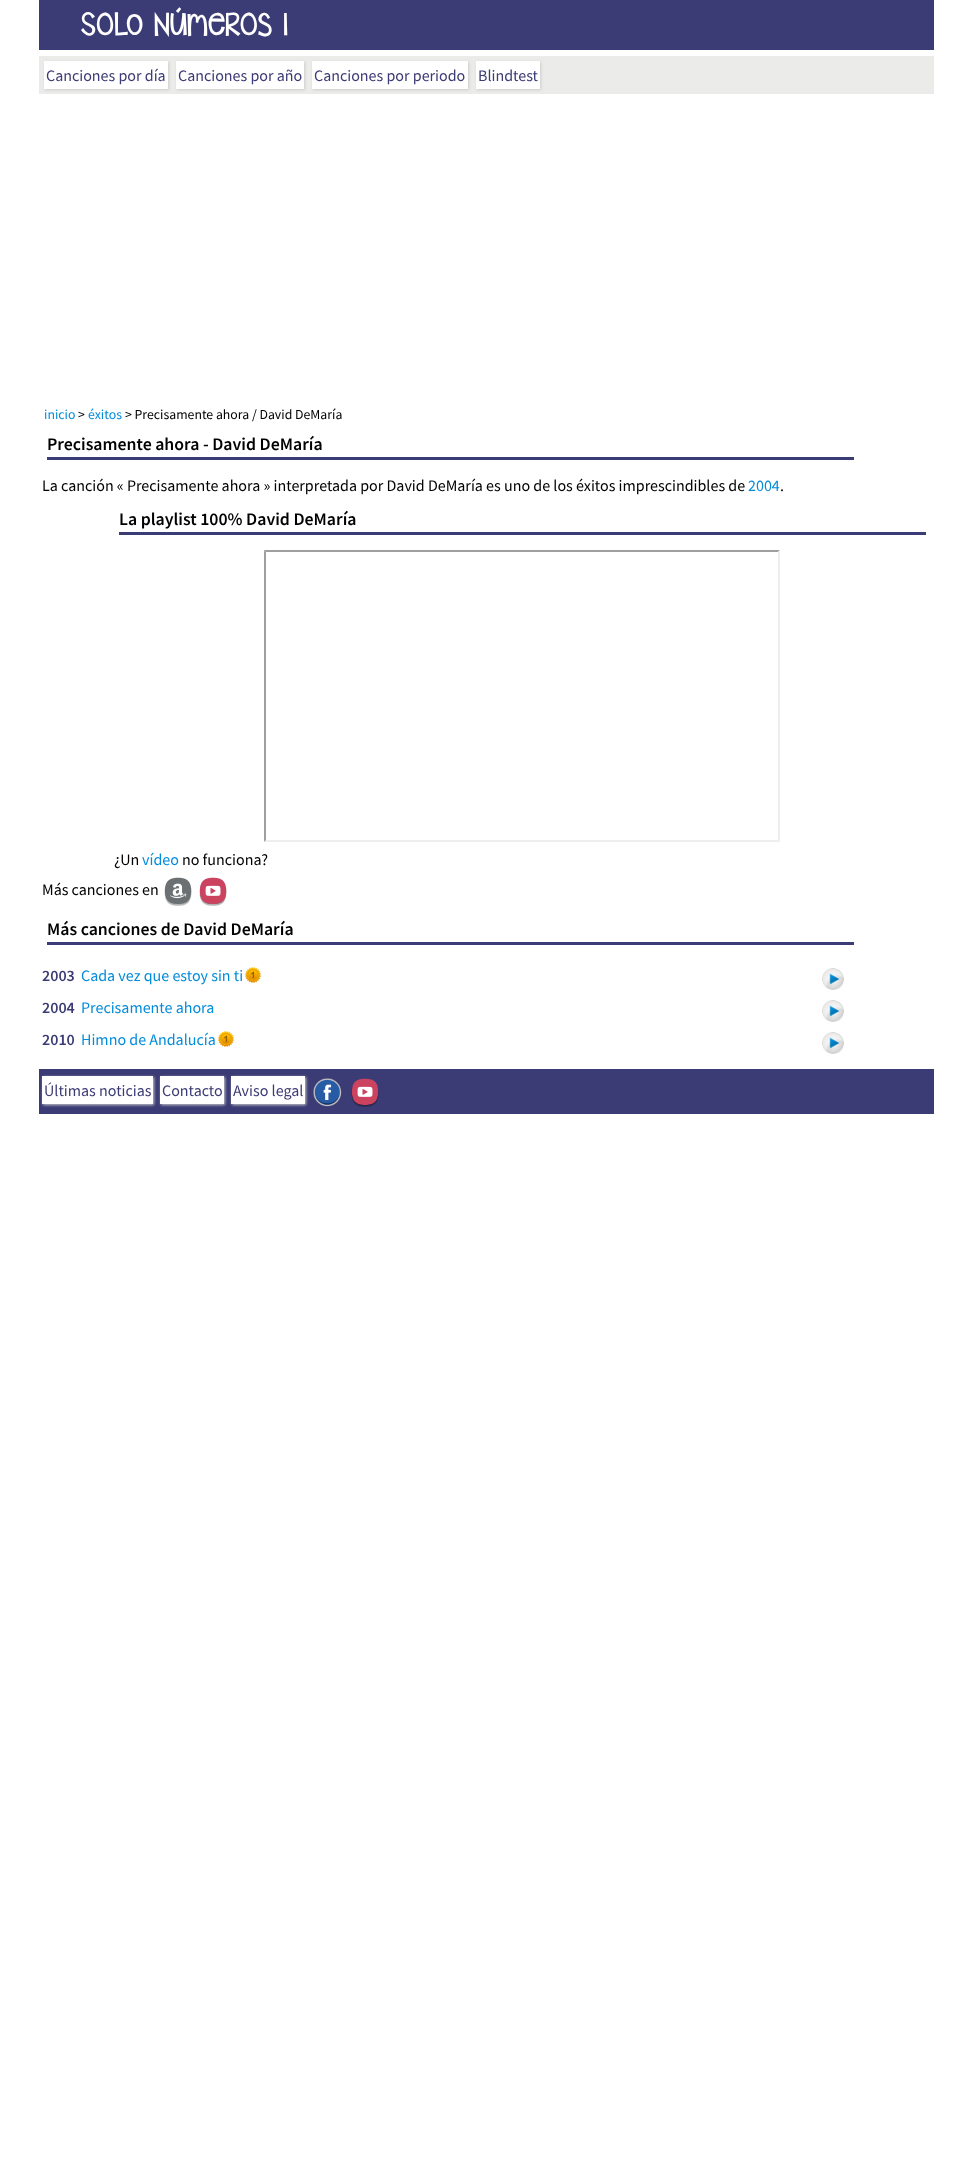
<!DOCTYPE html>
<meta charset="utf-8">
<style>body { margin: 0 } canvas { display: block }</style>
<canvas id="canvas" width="973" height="2163"></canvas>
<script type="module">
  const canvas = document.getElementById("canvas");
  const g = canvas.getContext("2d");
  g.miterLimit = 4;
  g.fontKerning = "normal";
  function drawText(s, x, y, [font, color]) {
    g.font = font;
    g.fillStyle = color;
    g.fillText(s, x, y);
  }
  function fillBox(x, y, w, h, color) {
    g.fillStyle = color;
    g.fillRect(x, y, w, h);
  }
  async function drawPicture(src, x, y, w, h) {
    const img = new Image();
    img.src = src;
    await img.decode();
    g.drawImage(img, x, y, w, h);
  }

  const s1 = ["bold 22.75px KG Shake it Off", "#FFFFFF"];
  const s2 = ["16px Source Sans Pro", "#3B3B75"];
  const s3 = ["13.75px Source Sans Pro", "#038CDA"];
  const s4 = ["13.75px Source Sans Pro", "#000000"];
  const s5 = ["600 17.8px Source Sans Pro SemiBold", "#000000"];
  const s6 = ["16px Source Sans Pro", "#000000"];
  const s7 = ["16px Source Sans Pro", "#038CDA"];
  const s8 = ["600 16px Source Sans Pro SemiBold", "#3B3B75"];

  fillBox(0, 0, 973, 2163, "#FFFFFF");
  fillBox(39, 0, 895, 50, "#3B3B75");
  drawText("SOLo NúmeROs 1", 80, 35, s1);
  fillBox(39, 56, 895, 38, "#EBEBEA");
  g.fillStyle = "#CCCCCC";
  g.filter = "blur(1.5px)";
  g.beginPath();
  g.rect(45, 62, 124, 28);
  g.fill();
  g.filter = "none";
  fillBox(44, 61, 124, 28, "#FFFFFF");
  drawText("Canciones por día", 46, 81, s2);
  g.fillStyle = "#CCCCCC";
  g.filter = "blur(1.5px)";
  g.beginPath();
  g.rect(177, 62, 128, 28);
  g.fill();
  g.filter = "none";
  fillBox(176, 61, 128, 28, "#FFFFFF");
  drawText("Canciones por año", 178, 81, s2);
  g.fillStyle = "#CCCCCC";
  g.filter = "blur(1.5px)";
  g.beginPath();
  g.rect(313, 62, 156, 28);
  g.fill();
  g.filter = "none";
  fillBox(312, 61, 156, 28, "#FFFFFF");
  drawText("Canciones por periodo", 314, 81, s2);
  g.fillStyle = "#CCCCCC";
  g.filter = "blur(1.5px)";
  g.beginPath();
  g.rect(477, 62, 64, 28);
  g.fill();
  g.filter = "none";
  fillBox(476, 61, 64, 28, "#FFFFFF");
  drawText("Blindtest", 478, 81, s2);
  drawText("inicio", 44, 419, s3);
  drawText(">", 78, 419, s4);
  drawText("éxitos", 88, 419, s3);
  drawText("> Precisamente ahora / David DeMaría", 125, 419, s4);
  fillBox(47, 457, 807, 3, "#3B3B75");
  drawText("Precisamente ahora - David DeMaría", 47, 450, s5);
  drawText("La canción « Precisamente ahora » interpretada por David DeMaría es uno de los éxitos imprescindibles de", 42, 491, s6);
  drawText("2004", 748, 491, s7);
  drawText(".", 780, 491, s6);
  fillBox(119, 532, 807, 3, "#3B3B75");
  drawText("La playlist 100% David DeMaría", 119, 525, s5);
  g.fillStyle = "#9F9F9F";
  g.beginPath();
  g.moveTo(264, 550);
  g.lineTo(780, 550);
  g.lineTo(778, 552);
  g.lineTo(266, 552);
  g.closePath();
  g.fill();
  g.fillStyle = "#EEEEEE";
  g.beginPath();
  g.moveTo(780, 550);
  g.lineTo(780, 842);
  g.lineTo(778, 840);
  g.lineTo(778, 552);
  g.closePath();
  g.fill();
  g.beginPath();
  g.moveTo(780, 842);
  g.lineTo(264, 842);
  g.lineTo(266, 840);
  g.lineTo(778, 840);
  g.closePath();
  g.fill();
  g.fillStyle = "#9F9F9F";
  g.beginPath();
  g.moveTo(264, 842);
  g.lineTo(264, 550);
  g.lineTo(266, 552);
  g.lineTo(266, 840);
  g.closePath();
  g.fill();
  drawText("¿Un", 114, 865, s6);
  drawText("vídeo", 142, 865, s7);
  drawText("no funciona?", 182, 865, s6);
  drawText("Más canciones en", 42, 895, s6);
  await drawPicture("pic1.png", 164, 877, 28, 29);
  await drawPicture("pic2.png", 199, 877, 28, 29);
  fillBox(47, 942, 807, 3, "#3B3B75");
  drawText("Más canciones de David DeMaría", 47, 935, s5);
  drawText("2003", 42, 981, s8);
  drawText("Cada vez que estoy sin ti", 81, 981, s7);
  await drawPicture("pic3.png", 245, 967, 16, 16);
  await drawPicture("pic4.png", 822, 968, 22, 22);
  drawText("2004", 42, 1013, s8);
  drawText("Precisamente ahora", 81, 1013, s7);
  await drawPicture("pic4.png", 822, 1000, 22, 22);
  drawText("2010", 42, 1045, s8);
  drawText("Himno de Andalucía", 81, 1045, s7);
  await drawPicture("pic3.png", 218, 1031, 16, 16);
  await drawPicture("pic4.png", 822, 1032, 22, 22);
  fillBox(39, 1069, 895, 45, "#3B3B75");
  g.fillStyle = "#CCCCCC";
  g.filter = "blur(1.5px)";
  g.beginPath();
  g.rect(43, 1077, 111, 28);
  g.fill();
  g.filter = "none";
  fillBox(42, 1076, 111, 28, "#FFFFFF");
  drawText("Últimas noticias", 44, 1096, s2);
  g.fillStyle = "#CCCCCC";
  g.filter = "blur(1.5px)";
  g.beginPath();
  g.rect(161, 1077, 64, 28);
  g.fill();
  g.filter = "none";
  fillBox(160, 1076, 64, 28, "#FFFFFF");
  drawText("Contacto", 162, 1096, s2);
  g.fillStyle = "#CCCCCC";
  g.filter = "blur(1.5px)";
  g.beginPath();
  g.rect(232, 1077, 74, 28);
  g.fill();
  g.filter = "none";
  fillBox(231, 1076, 74, 28, "#FFFFFF");
  drawText("Aviso legal", 233, 1096, s2);
  await drawPicture("pic5.png", 313, 1078, 29, 29);
  await drawPicture("pic6.png", 351, 1078, 28, 29);
</script>
